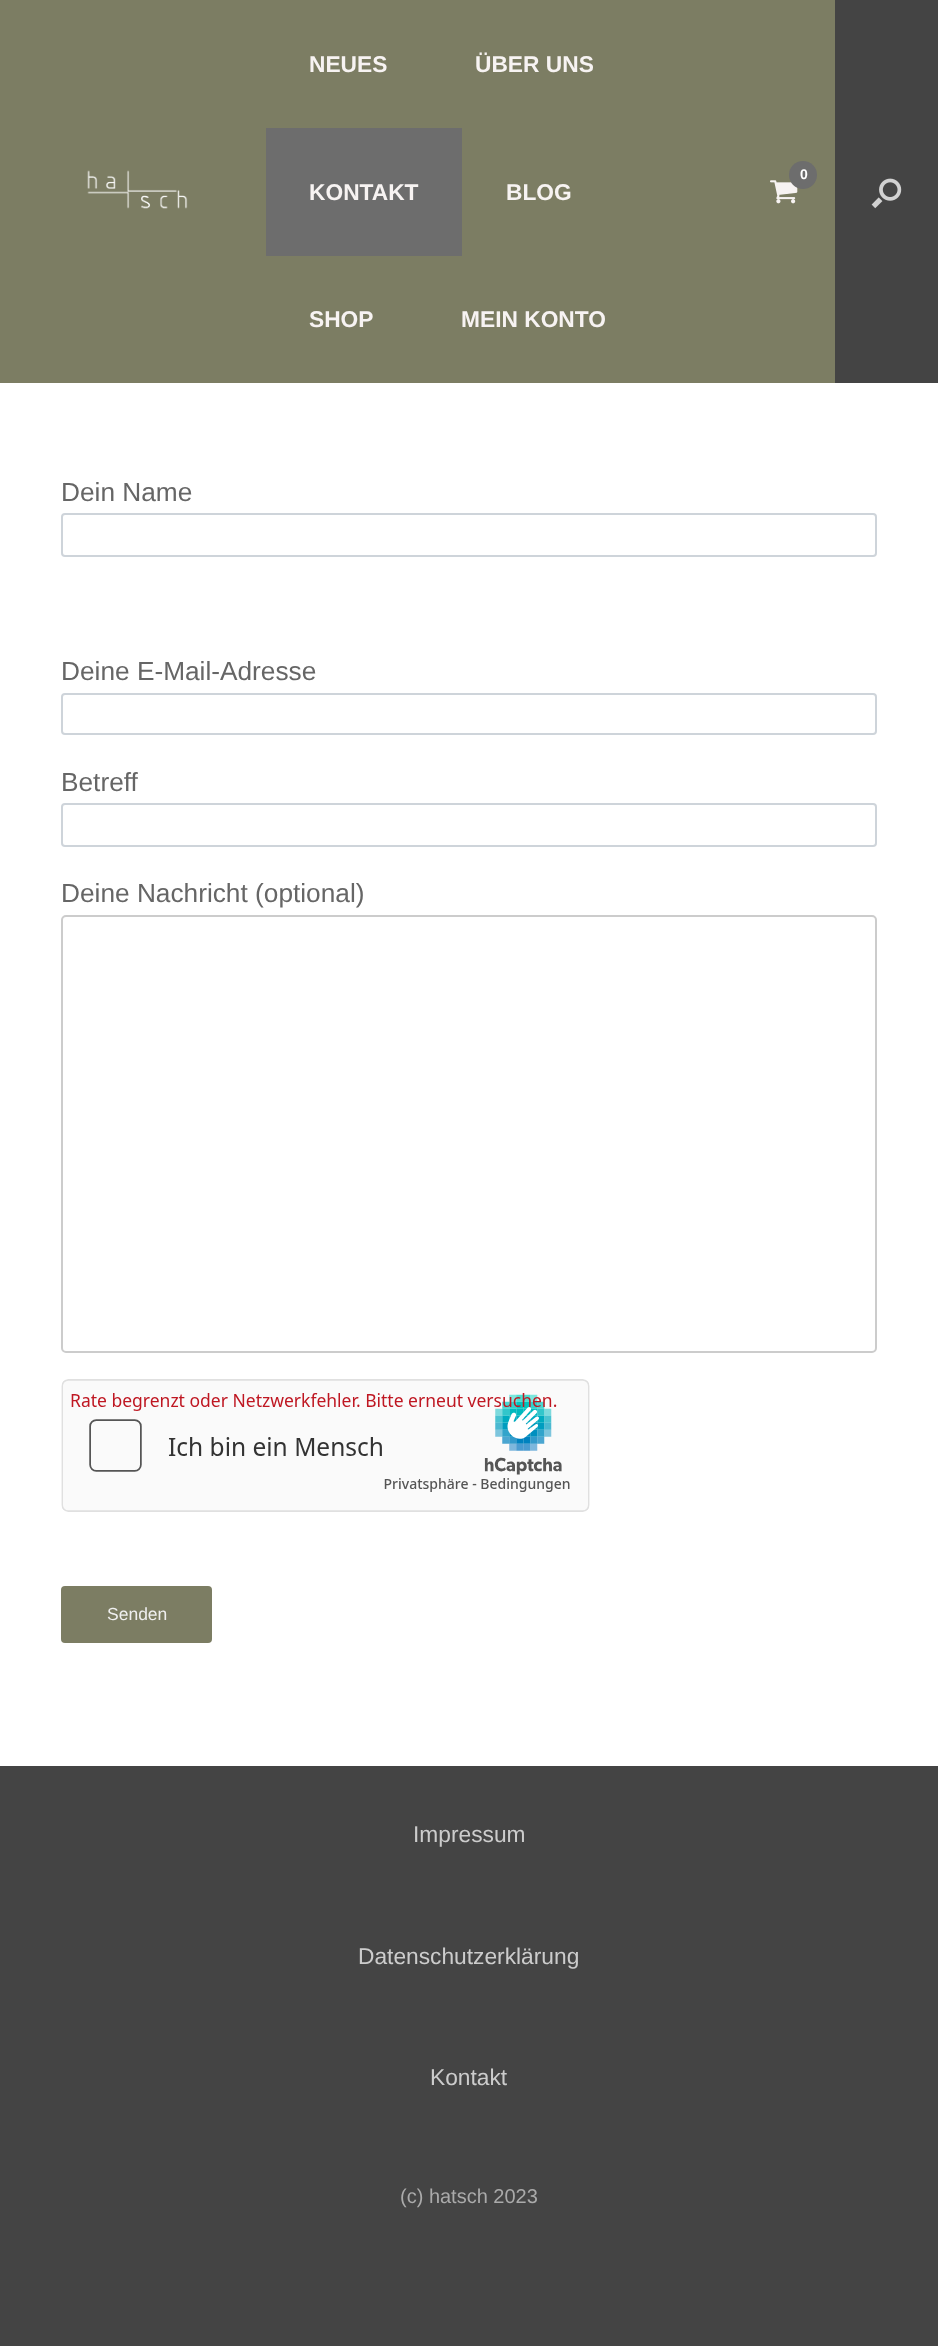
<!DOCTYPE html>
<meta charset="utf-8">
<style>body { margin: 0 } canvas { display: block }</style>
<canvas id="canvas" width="938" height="2346"></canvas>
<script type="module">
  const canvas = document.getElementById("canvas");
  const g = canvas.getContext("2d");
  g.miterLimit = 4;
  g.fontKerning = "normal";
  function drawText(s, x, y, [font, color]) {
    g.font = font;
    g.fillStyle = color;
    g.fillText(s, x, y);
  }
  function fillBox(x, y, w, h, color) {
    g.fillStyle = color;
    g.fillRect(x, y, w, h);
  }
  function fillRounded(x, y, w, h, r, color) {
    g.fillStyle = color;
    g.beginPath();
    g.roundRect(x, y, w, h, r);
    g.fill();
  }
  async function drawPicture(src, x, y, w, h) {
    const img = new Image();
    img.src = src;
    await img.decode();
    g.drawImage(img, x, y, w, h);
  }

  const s1 = ["bold 22.75px Liberation Sans", "#F7F3F2"];
  const s2 = ["bold 14px Liberation Sans", "#FFFFFF"];
  const s3 = ["26.25px Liberation Sans", "#666666"];
  const s4 = ["17.5px Liberation Sans", "#EFEFEF"];
  const s5 = ["22.75px Liberation Sans", "#CCCCCC"];
  const s6 = ["20px Liberation Sans", "#AAAAAA"];

  fillBox(0, 0, 938, 2346, "#444444");
  fillBox(0, 0, 835, 383, "#7C7D63");
  await drawPicture("pic1.png", 87, 170, 101, 39);
  drawText("NEUES", 309, 72, s1);
  drawText("ÜBER UNS", 475, 72, s1);
  fillBox(266, 128, 196, 128, "#6D6D6D");
  drawText("KONTAKT", 309, 200, s1);
  drawText("BLOG", 506, 200, s1);
  drawText("SHOP", 309, 327, s1);
  drawText("MEIN KONTO", 461, 327, s1);
  await drawPicture("pic2.png", 770, 180, 28, 24);
  g.fillStyle = "#6D6D6D";
  g.beginPath();
  g.arc(803, 175, 14, 0, Math.PI * 2);
  g.fill();
  drawText("0", 800, 179, s2);
  await drawPicture("pic3.png", 871, 178, 31, 31);
  fillBox(0, 383, 938, 1383, "#FFFFFF");
  drawText("Dein Name", 61, 501, s3);
  g.beginPath();
  g.roundRect(62, 514, 814, 42, 3);
  g.strokeStyle = "#CED4DA";
  g.lineWidth = 2;
  g.stroke();
  drawText("Deine E-Mail-Adresse", 61, 680, s3);
  g.beginPath();
  g.roundRect(62, 694, 814, 40, 3);
  g.stroke();
  drawText("Betreff", 61, 791, s3);
  g.beginPath();
  g.roundRect(62, 804, 814, 42, 3);
  g.stroke();
  drawText("Deine Nachricht (optional)", 61, 902, s3);
  g.beginPath();
  g.roundRect(62, 916, 814, 436, 4);
  g.strokeStyle = "#CCCCCC";
  g.stroke();
  await drawPicture("pic4.png", 61, 1379, 529, 133);
  fillRounded(61, 1586, 151, 57, 4, "#7C7D63");
  drawText("Senden", 107, 1620, s4);
  drawText("Impressum", 413, 1842, s5);
  drawText("Datenschutzerklärung", 358, 1964, s5);
  drawText("Kontakt", 430, 2085, s5);
  drawText("(c) hatsch 2023", 400, 2203, s6);
</script>
